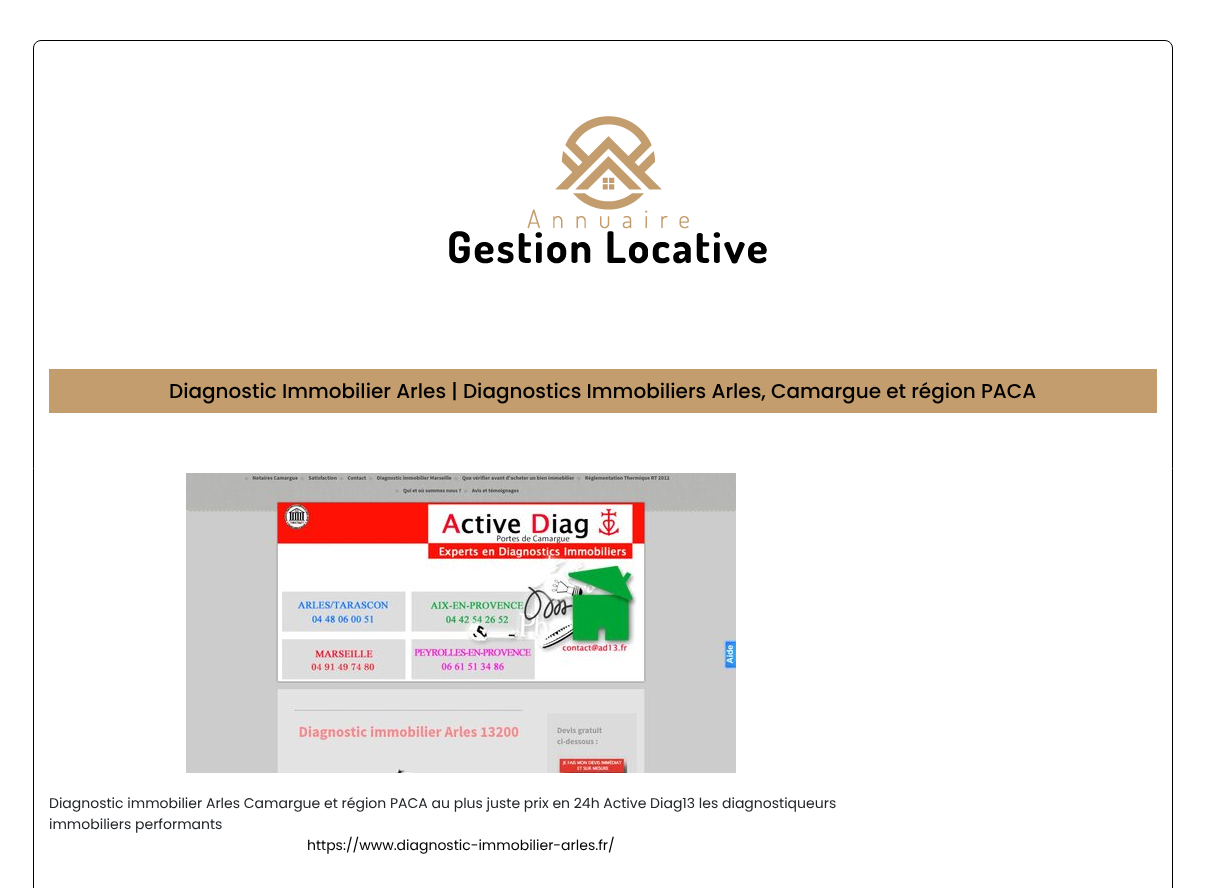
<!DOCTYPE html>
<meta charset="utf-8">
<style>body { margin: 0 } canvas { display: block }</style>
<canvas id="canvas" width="1206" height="888"></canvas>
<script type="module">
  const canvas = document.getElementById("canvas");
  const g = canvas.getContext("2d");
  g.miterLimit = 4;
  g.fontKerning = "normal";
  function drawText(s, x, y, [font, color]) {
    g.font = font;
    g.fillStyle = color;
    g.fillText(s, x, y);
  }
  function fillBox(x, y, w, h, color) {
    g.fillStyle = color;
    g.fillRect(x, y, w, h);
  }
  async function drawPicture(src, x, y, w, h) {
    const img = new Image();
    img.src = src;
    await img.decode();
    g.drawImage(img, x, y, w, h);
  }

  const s1 = ["500 20px Poppins", "#000000"];
  const s2 = ["14px Poppins", "#212529"];
  const s3 = ["14px Poppins", "#000000"];

  fillBox(0, 0, 1206, 888, "#FFFFFF");
  g.beginPath();
  g.roundRect(33.5, 40.5, 1139, 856, 7.5);
  g.strokeStyle = "#000000";
  g.stroke();
  await drawPicture("pic1.png", 449, 116, 318, 148);
  fillBox(49, 369, 1108, 44, "#C49D6E");
  drawText("Diagnostic Immobilier Arles | Diagnostics Immobiliers Arles, Camargue et région PACA", 169, 398, s1);
  await drawPicture("pic2.png", 186, 473, 550, 300);
  drawText("Diagnostic immobilier Arles Camargue et région PACA au plus juste prix en 24h Active Diag13 les diagnostiqueurs", 49, 808, s2);
  drawText("immobiliers performants", 49, 829, s2);
  drawText("https://www.diagnostic-immobilier-arles.fr/", 307, 850, s3);
</script>
